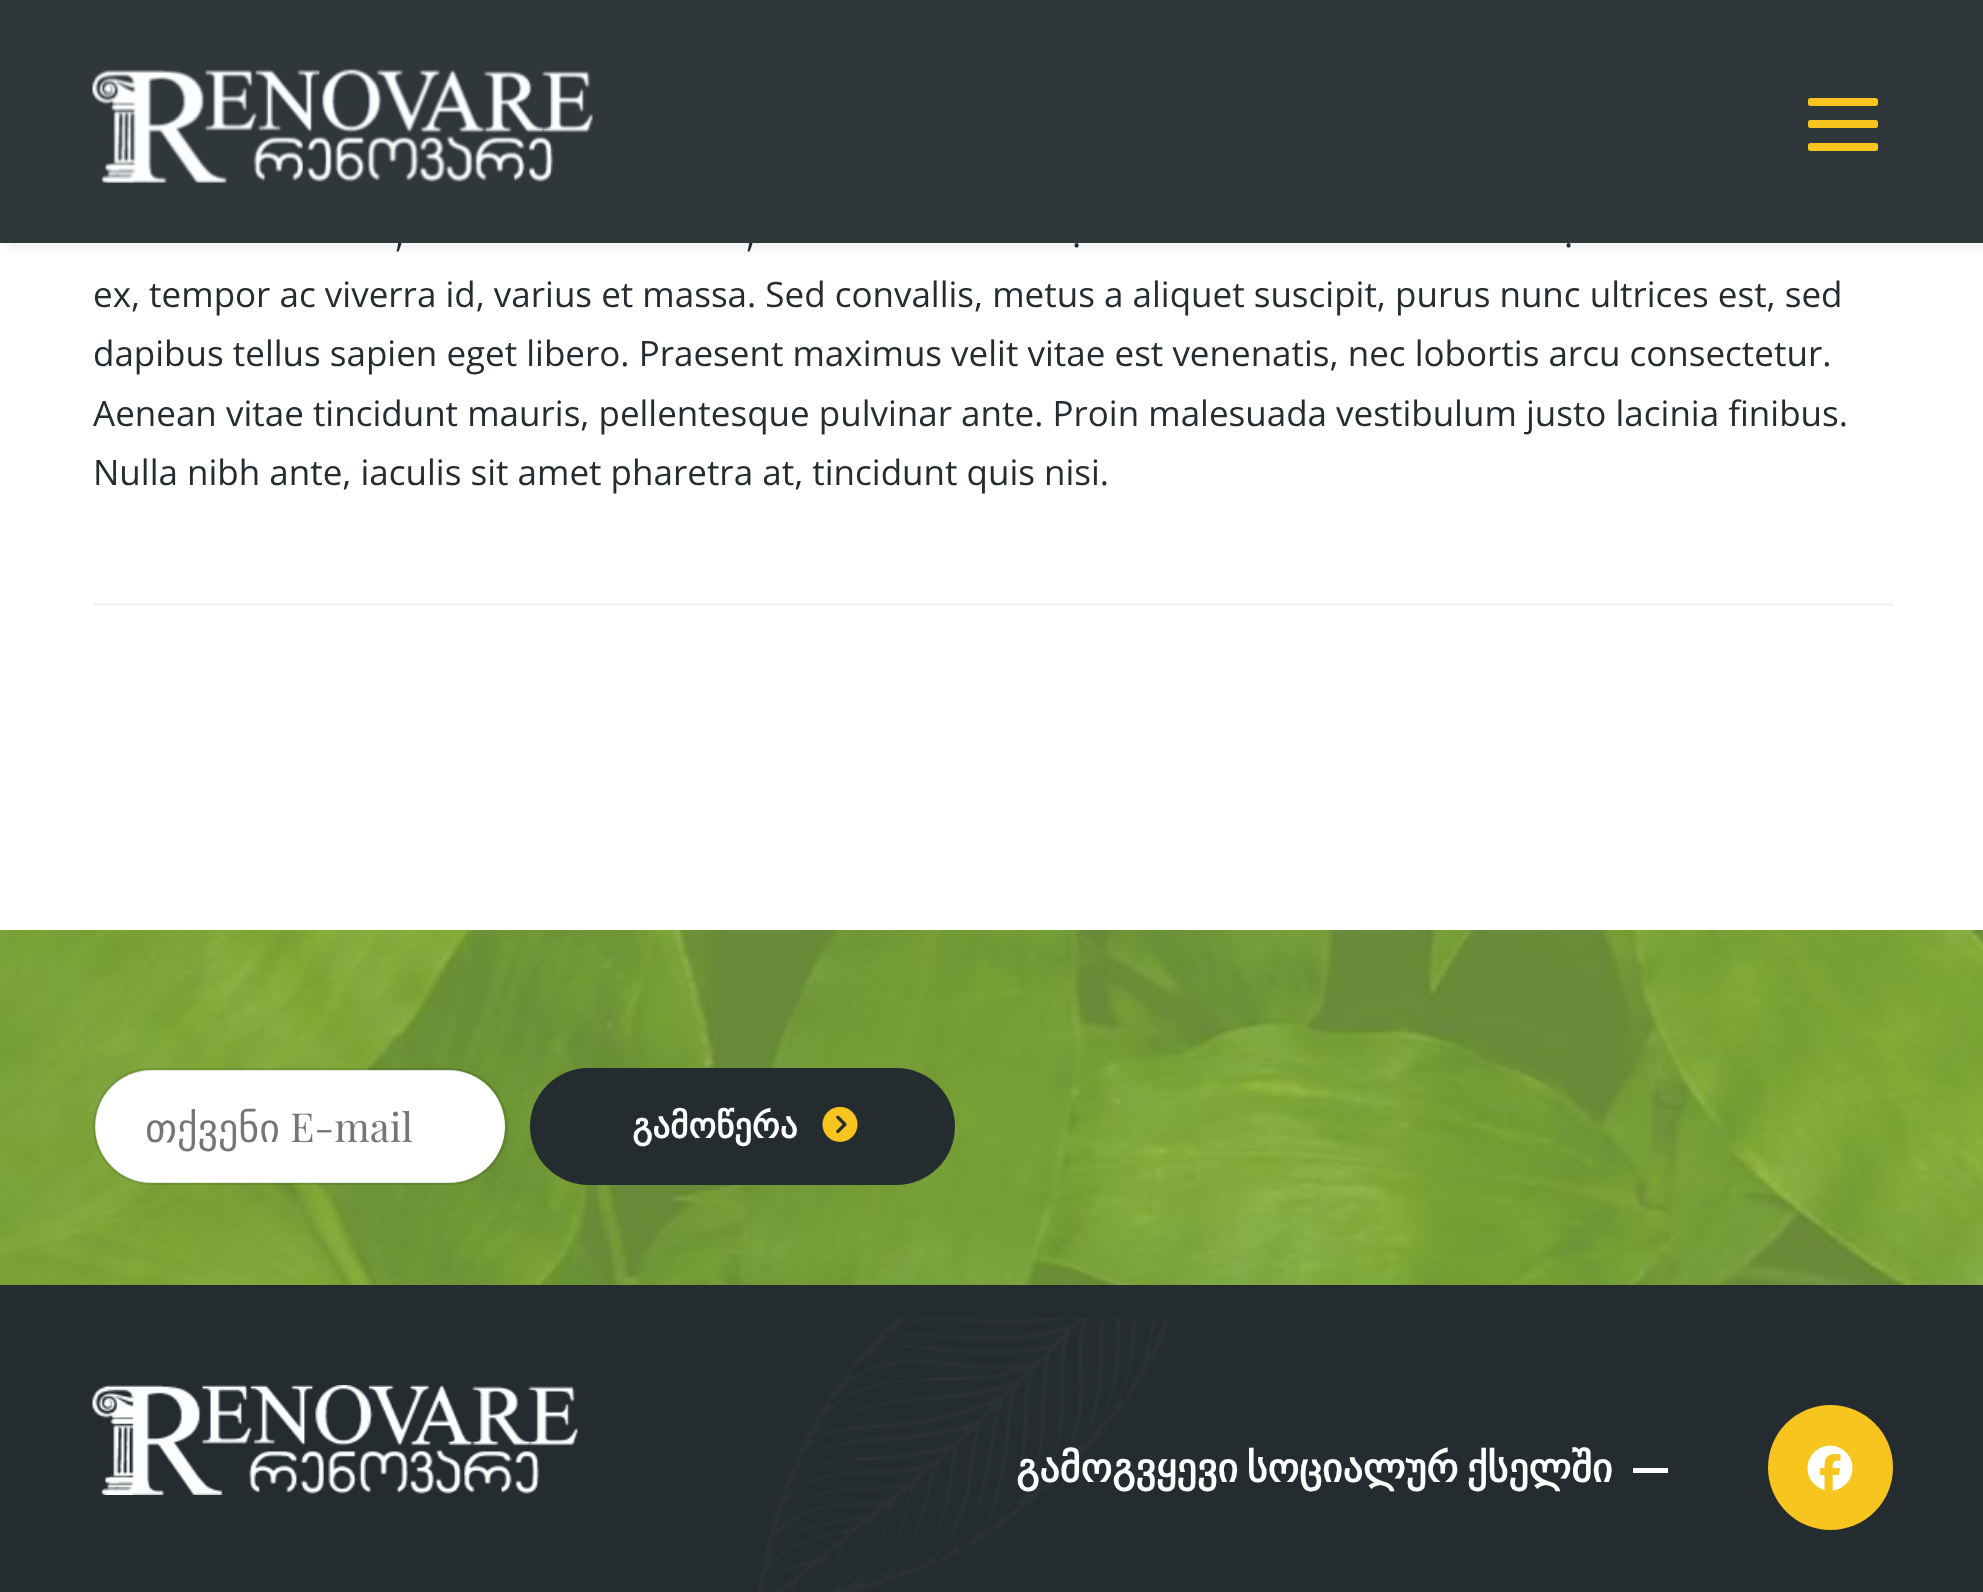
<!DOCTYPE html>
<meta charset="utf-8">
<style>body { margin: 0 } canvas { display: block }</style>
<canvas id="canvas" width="1983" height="1592"></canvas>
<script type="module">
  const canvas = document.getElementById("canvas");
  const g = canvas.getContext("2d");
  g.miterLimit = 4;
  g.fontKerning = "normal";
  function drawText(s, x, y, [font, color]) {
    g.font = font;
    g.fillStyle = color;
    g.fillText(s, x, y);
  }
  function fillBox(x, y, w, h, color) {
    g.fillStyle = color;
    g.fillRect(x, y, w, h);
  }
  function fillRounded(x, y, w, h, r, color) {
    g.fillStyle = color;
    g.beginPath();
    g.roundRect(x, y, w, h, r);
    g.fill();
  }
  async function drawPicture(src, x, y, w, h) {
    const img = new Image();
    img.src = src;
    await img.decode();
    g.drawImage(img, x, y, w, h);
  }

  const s1 = ["35px Open Sans", "#252C30"];
  const s2 = ["40px DejaVu Sans", "#757575"];
  const s3 = ["40px Playfair Display", "#757575"];
  const s4 = ["bold 35px DejaVu Sans", "#FFFFFF"];
  const s5 = ["bold 40px DejaVu Sans", "#FFFFFF"];

  fillBox(0, 0, 1983, 1592, "#FFFFFF");
  g.save();
  g.beginPath();
  g.moveTo(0, 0);
  g.lineTo(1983, 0);
  g.lineTo(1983, 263);
  g.lineTo(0, 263);
  g.closePath();
  g.moveTo(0, 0);
  g.lineTo(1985, 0);
  g.lineTo(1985, 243);
  g.lineTo(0, 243);
  g.closePath();
  g.clip("evenodd");
  g.fillStyle = "rgba(0, 0, 0, 0.05)";
  g.filter = "blur(4px)";
  g.beginPath();
  g.rect(8, 8, 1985, 242);
  g.fill();
  g.filter = "none";
  g.restore();
  drawText(",", 395, 247, s1);
  drawText(",", 746, 247, s1);
  fillBox(0, 0, 1983, 243, "rgba(37, 44, 48, 0.95)");
  await drawPicture("pic1.png", 92, 68, 501, 115);
  fillRounded(1808, 98, 70, 8, 2.5, "#F7C51E");
  fillRounded(1808, 120, 70, 8, 2.5, "#F7C51E");
  fillRounded(1808, 143, 70, 8, 2.5, "#F7C51E");
  drawText(".", 1072, 247, s1);
  drawText(".", 1564, 247, s1);
  drawText("ex, tempor ac viverra id, varius et massa. Sed convallis, metus a aliquet suscipit, purus nunc ultrices est, sed", 93, 307, s1);
  drawText("dapibus tellus sapien eget libero. Praesent maximus velit vitae est venenatis, nec lobortis arcu consectetur.", 93, 366, s1);
  drawText("Aenean vitae tincidunt mauris, pellentesque pulvinar ante. Proin malesuada vestibulum justo lacinia finibus.", 93, 426, s1);
  drawText("Nulla nibh ante, iaculis sit amet pharetra at, tincidunt quis nisi.", 93, 485, s1);
  fillBox(93, 603, 1800, 3, "#F2F2F2");
  await drawPicture("pic2.png", 0, 930, 1983, 355);
  fillRounded(95, 1070, 410, 113, 56.5, "#FFFFFF");
  g.beginPath();
  g.roundRect(94.5, 1069.5, 412, 114, 57);
  g.strokeStyle = "rgba(0, 0, 0, 0.1)";
  g.lineWidth = 3;
  g.stroke();
  drawText("თქვენი", 145, 1142, s2);
  drawText("E-mail", 290, 1142, s3);
  fillRounded(530, 1068, 425, 117, 58.5, "#252C30");
  drawText("გამოწერა", 632, 1138, s4);
  await drawPicture("pic3.png", 822, 1106, 36, 36);
  fillBox(0, 1285, 1983, 307, "#252C30");
  await drawPicture("pic4.png", 758, 1318, 411, 274);
  await drawPicture("pic5.png", 92, 1385, 486, 110);
  g.wordSpacing = "-4px";
  drawText("გამოგვყევი სოციალურ ქსელში", 1016, 1482, s5);
  fillBox(1633, 1468, 35, 5, "#FFFFFF");
  g.fillStyle = "#F7C51E";
  g.beginPath();
  g.arc(1830.5, 1467.5, 62.5, 0, Math.PI * 2);
  g.fill();
  await drawPicture("pic6.png", 1807, 1445, 46, 46);
</script>
